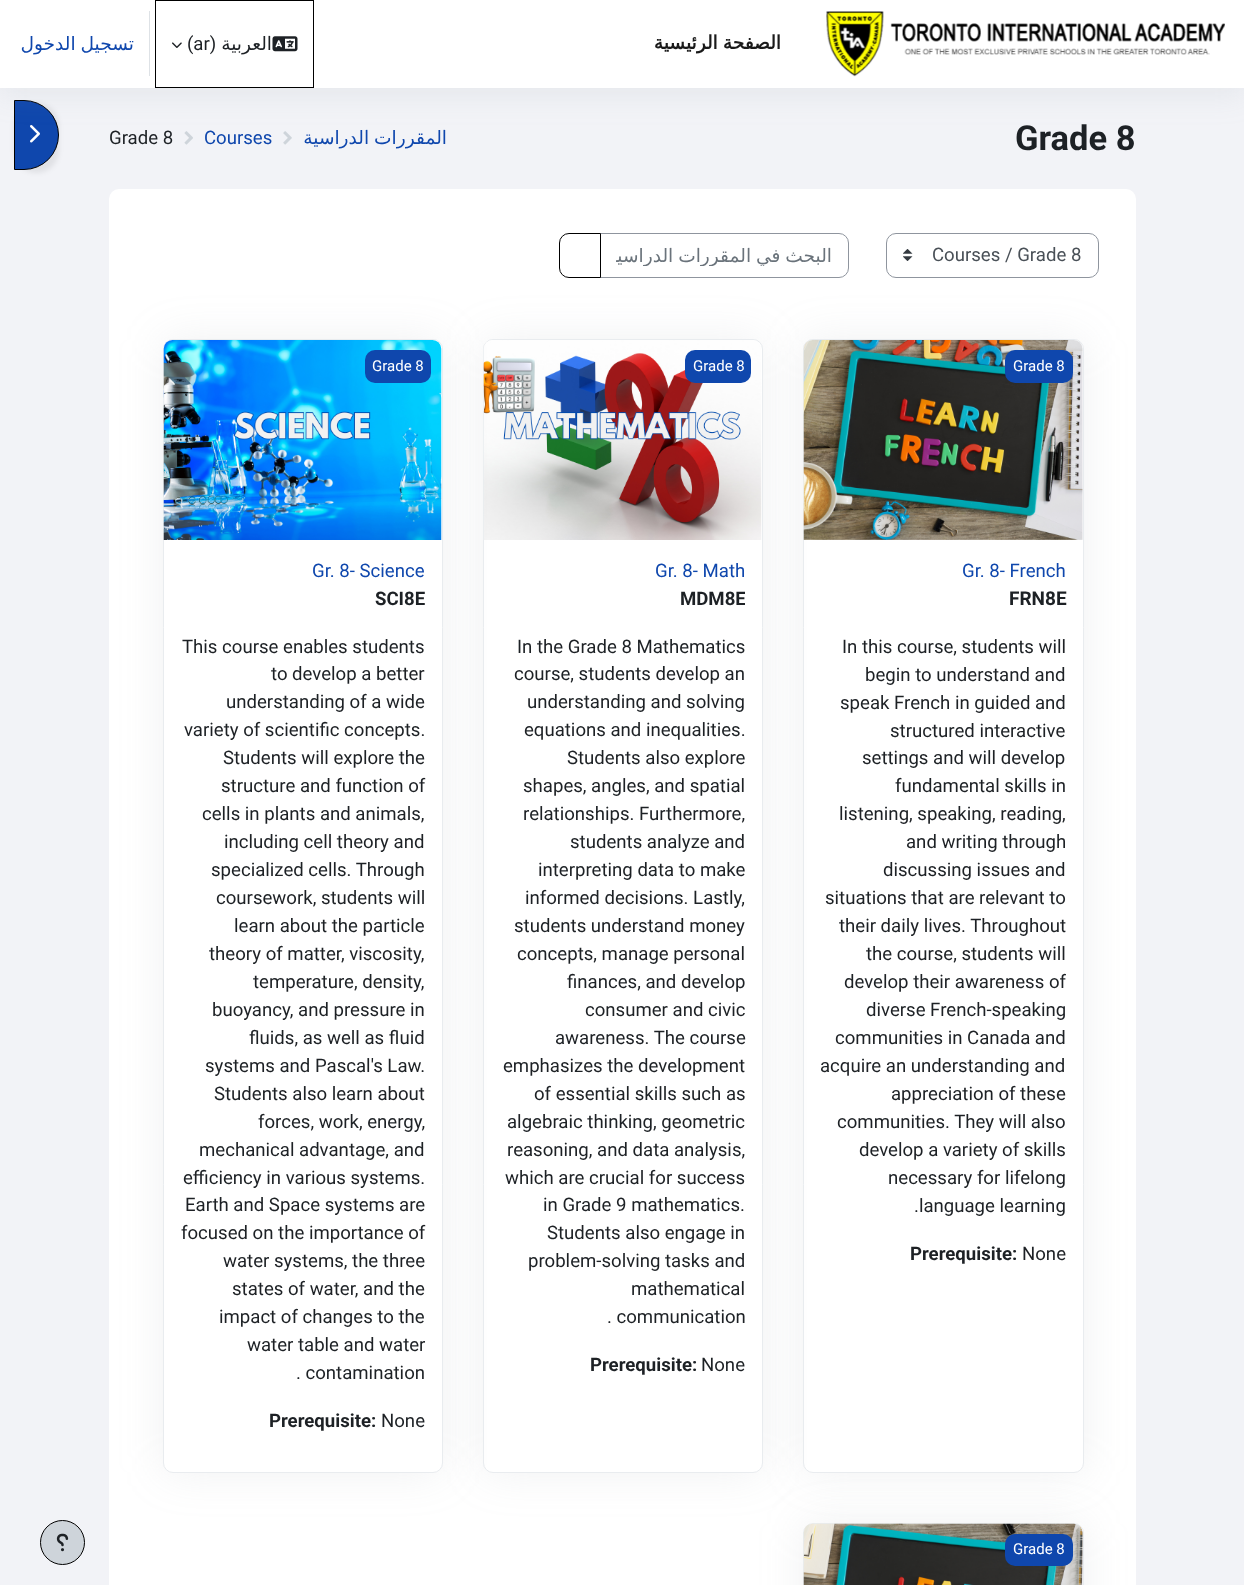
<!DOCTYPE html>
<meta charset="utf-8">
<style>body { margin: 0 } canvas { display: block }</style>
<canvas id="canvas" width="1244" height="1585"></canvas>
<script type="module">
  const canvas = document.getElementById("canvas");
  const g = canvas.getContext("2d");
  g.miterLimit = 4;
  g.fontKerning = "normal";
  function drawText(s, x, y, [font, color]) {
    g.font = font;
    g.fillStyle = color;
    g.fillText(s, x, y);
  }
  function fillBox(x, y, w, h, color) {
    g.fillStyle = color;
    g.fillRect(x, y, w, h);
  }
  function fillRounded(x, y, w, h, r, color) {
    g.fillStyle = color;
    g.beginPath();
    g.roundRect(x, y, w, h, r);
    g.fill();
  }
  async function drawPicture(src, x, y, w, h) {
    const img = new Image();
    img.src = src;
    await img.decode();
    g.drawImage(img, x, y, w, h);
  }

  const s1 = ["18.6px DejaVu Sans", "#0F47AD"];
  const s2 = ["18.6px Roboto", "#1D2125"];
  const s3 = ["18.6px DejaVu Sans", "#1D2125"];
  const s4 = ["bold 18.6px DejaVu Sans", "#1A1A1A"];
  const s5 = ["18.6px Roboto", "#0F47AD"];
  const s6 = ["bold 34.5px Roboto", "#1D2125"];
  const s7 = ["18.6px DejaVu Sans", "#6A737B"];
  const s8 = ["18.6px Roboto", "#495057"];
  const s9 = ["15px Roboto", "#FFFFFF"];
  const s10 = ["bold 18.6px Roboto", "#1D2125"];
  const s11 = ["bold 19px Roboto", "#1D2125"];

  fillBox(0, 0, 1244, 1585, "#F2F3F7");
  await drawPicture("pic4.png", 184, 131, 9, 14);
  await drawPicture("pic5.png", 283, 131, 9, 14);
  g.fillStyle = "rgba(0, 0, 0, 0.07)";
  g.filter = "blur(2.5px)";
  g.beginPath();
  g.roundRect(14, 103, 45, 70, 35);
  g.fill();
  g.filter = "none";
  g.fillStyle = "#0F47AD";
  g.beginPath();
  g.roundRect(14.5, 100.5, 44, 69, [0, 34.5, 34.5, 0]);
  g.fill();
  g.strokeStyle = "#000000";
  g.stroke();
  await drawPicture("pic7.png", 30, 125, 10, 18);
  g.fillStyle = "rgba(140, 152, 164, 0.13)";
  g.filter = "blur(15px)";
  g.beginPath();
  g.rect(0, 8, 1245, 87);
  g.fill();
  g.filter = "none";
  fillBox(0, 0, 1244, 88, "#FFFFFF");
  g.wordSpacing = "-1px";
  g.direction = "rtl";
  drawText("تسجيل الدخول", 134, 50, s1);
  fillBox(149, 11, 1, 65, "#DEE2E6");
  g.strokeRect(155.5, 0.5, 158, 87);
  await drawPicture("pic1.png", 172, 42, 10, 6);
  g.wordSpacing = "0px";
  g.direction = "ltr";
  drawText("(ar)", 187, 50, s2);
  g.direction = "rtl";
  drawText("العربية", 272, 50, s3);
  await drawPicture("pic2.png", 272, 36, 26, 16);
  g.wordSpacing = "-1px";
  drawText("الصفحة الرئيسية", 781, 49, s4);
  await drawPicture("pic3.png", 826, 11, 399, 66);
  g.wordSpacing = "0px";
  g.direction = "ltr";
  drawText("Grade 8", 109, 144, s2);
  drawText("Courses", 204, 144, s5);
  g.wordSpacing = "-1px";
  g.direction = "rtl";
  drawText("المقررات الدراسية", 447, 144, s1);
  g.wordSpacing = "0px";
  g.direction = "ltr";
  drawText("Grade 8", 1015, 150, s6);
  g.fillStyle = "#CED4DA";
  g.beginPath();
  g.arc(62.5, 1542.5, 22, 0, Math.PI * 2);
  g.fill();
  g.stroke();
  await drawPicture("pic6.png", 56, 1533, 13, 19);
  g.fillStyle = "#FFFFFF";
  g.beginPath();
  g.roundRect(109, 189, 1027, 1396, [10, 10, 0, 0]);
  g.fill();
  g.beginPath();
  g.roundRect(600.5, 233.5, 248, 44, [0, 9.5, 9.5, 0]);
  g.strokeStyle = "#8F959E";
  g.stroke();
  await drawPicture("pic8.png", 903, 249, 10, 12);
  g.beginPath();
  g.roundRect(886.5, 233.5, 212, 44, 9.5);
  g.stroke();
  g.fillStyle = "rgba(154, 161, 171, 0.15)";
  g.filter = "blur(22px)";
  g.beginPath();
  g.roundRect(803, 339, 281, 1134, 10);
  g.fill();
  g.filter = "none";
  g.fillStyle = "#FFFFFF";
  g.beginPath();
  g.roundRect(803.5, 339.5, 280, 1133, 9.5);
  g.fill();
  g.strokeStyle = "#E9ECEF";
  g.stroke();
  await drawPicture("pic11.png", 803, 340, 280, 200);
  g.fillStyle = "rgba(154, 161, 171, 0.15)";
  g.filter = "blur(22px)";
  g.beginPath();
  g.roundRect(483, 339, 280, 1134, 10);
  g.fill();
  g.filter = "none";
  g.fillStyle = "#FFFFFF";
  g.beginPath();
  g.roundRect(559.5, 233.5, 41, 44, [9.5, 0, 0, 9.5]);
  g.fill();
  g.strokeStyle = "#000000";
  g.stroke();
  g.save();
  g.beginPath();
  g.rect(616, 244, 217, 22);
  g.clip();
  g.wordSpacing = "-1px";
  g.direction = "rtl";
  drawText("البحث في المقررات الدراسية", 832, 262, s7);
  g.restore();
  drawText("Courses / Grade 8", 932, 261, s8);
  g.fillStyle = "#FFFFFF";
  g.beginPath();
  g.roundRect(483.5, 339.5, 279, 1133, 9.5);
  g.fill();
  g.strokeStyle = "#E9ECEF";
  g.stroke();
  await drawPicture("pic10.png", 483, 340, 279, 200);
  g.fillStyle = "rgba(154, 161, 171, 0.15)";
  g.filter = "blur(22px)";
  g.beginPath();
  g.roundRect(163, 339, 280, 1134, 10);
  g.fill();
  g.filter = "none";
  g.fillStyle = "#FFFFFF";
  g.beginPath();
  g.roundRect(163.5, 339.5, 279, 1133, 9.5);
  g.fill();
  g.stroke();
  await drawPicture("pic9.png", 163, 340, 279, 200);
  fillRounded(365, 350, 66, 33, 10, "#0F47AD");
  drawText("Grade 8", 372, 371, s9);
  drawText("Gr. 8- Science", 312, 577, s5);
  drawText("SCI8E", 375, 605, s10);
  drawText("This course enables students", 182, 653, s2);
  drawText("to develop a better", 271, 680, s2);
  drawText("understanding of a wide", 226, 708, s2);
  drawText("variety of scientific concepts.", 184, 736, s2);
  drawText("Students will explore the", 223, 764, s2);
  drawText("structure and function of", 221, 792, s2);
  drawText("cells in plants and animals,", 202, 820, s2);
  drawText("including cell theory and", 224, 848, s2);
  drawText("specialized cells. Through", 211, 876, s2);
  drawText("coursework, students will", 216, 904, s2);
  drawText("learn about the particle", 234, 932, s2);
  drawText("theory of matter, viscosity,", 209, 960, s2);
  drawText("temperature, density,", 253, 988, s2);
  drawText("buoyancy, and pressure in", 212, 1016, s2);
  drawText("fluids, as well as fluid", 249, 1044, s2);
  drawText("systems and Pascal's Law.", 205, 1072, s2);
  drawText("Students also learn about", 214, 1100, s2);
  drawText("forces, work, energy,", 258, 1128, s2);
  drawText("mechanical advantage, and", 199, 1156, s2);
  drawText("efficiency in various systems.", 183, 1184, s2);
  drawText("Earth and Space systems are", 185, 1211, s2);
  drawText("focused on the importance of", 181, 1239, s2);
  drawText("water systems, the three", 223, 1267, s2);
  drawText("states of water, and the", 232, 1295, s2);
  drawText("impact of changes to the", 219, 1323, s2);
  drawText("water table and water", 247, 1351, s2);
  drawText(". contamination", 296, 1379, s2);
  drawText("Prerequisite:", 269, 1427, s10);
  drawText("None", 381, 1427, s2);
  fillRounded(685, 350, 66, 33, 10, "#0F47AD");
  drawText("Grade 8", 693, 371, s9);
  drawText("Gr. 8- Math", 655, 577, s5);
  g.save();
  g.beginPath();
  g.rect(500, 585, 245, 814);
  g.clip();
  drawText("MDM8E", 680, 605, s10);
  g.restore();
  drawText("In the Grade 8 Mathematics", 517, 653, s2);
  drawText("course, students develop an", 514, 680, s2);
  drawText("understanding and solving", 527, 708, s2);
  drawText("equations and inequalities.", 524, 736, s2);
  drawText("Students also explore", 567, 764, s2);
  drawText("shapes, angles, and spatial", 523, 792, s2);
  drawText("relationships. Furthermore,", 523, 820, s2);
  drawText("students analyze and", 570, 848, s2);
  drawText("interpreting data to make", 538, 876, s2);
  drawText("informed decisions. Lastly,", 525, 904, s2);
  drawText("students understand money", 514, 932, s2);
  drawText("concepts, manage personal", 517, 960, s2);
  drawText("finances, and develop", 567, 988, s2);
  drawText("consumer and civic", 585, 1016, s2);
  drawText("awareness. The course", 555, 1044, s2);
  drawText("emphasizes the development", 503, 1072, s2);
  drawText("of essential skills such as", 534, 1100, s2);
  drawText("algebraic thinking, geometric", 507, 1128, s2);
  drawText("reasoning, and data analysis,", 507, 1156, s2);
  drawText("which are crucial for success", 505, 1184, s2);
  drawText("in Grade 9 mathematics.", 543, 1211, s2);
  drawText("Students also engage in", 547, 1239, s2);
  drawText("problem-solving tasks and", 528, 1267, s2);
  drawText("mathematical", 631, 1295, s2);
  drawText(". communication", 607, 1323, s2);
  drawText("Prerequisite:", 590, 1371, s10);
  drawText("None", 701, 1371, s2);
  fillRounded(1005, 350, 68, 33, 10, "#0F47AD");
  drawText("Grade 8", 1013, 371, s9);
  drawText("Gr. 8- French", 962, 577, s5);
  drawText("FRN8E", 1009, 605, s11);
  drawText("In this course, students will", 842, 653, s2);
  drawText("begin to understand and", 865, 681, s2);
  drawText("speak French in guided and", 840, 709, s2);
  drawText("structured interactive", 890, 737, s2);
  drawText("settings and will develop", 862, 764, s2);
  drawText("fundamental skills in", 895, 792, s2);
  drawText("listening, speaking, reading,", 839, 820, s2);
  drawText("and writing through", 906, 848, s2);
  drawText("discussing issues and", 883, 876, s2);
  drawText("situations that are relevant to", 825, 904, s2);
  drawText("their daily lives. Throughout", 839, 932, s2);
  drawText("the course, students will", 866, 960, s2);
  drawText("develop their awareness of", 844, 988, s2);
  drawText("diverse French-speaking", 866, 1016, s2);
  drawText("communities in Canada and", 835, 1044, s2);
  drawText("acquire an understanding and", 820, 1072, s2);
  drawText("appreciation of these", 891, 1100, s2);
  drawText("communities. They will also", 837, 1128, s2);
  drawText("develop a variety of skills", 859, 1156, s2);
  drawText("necessary for lifelong", 888, 1184, s2);
  drawText(".language learning", 914, 1212, s2);
  drawText("Prerequisite:", 910, 1260, s10);
  drawText("None", 1022, 1260, s2);
  g.fillStyle = "rgba(154, 161, 171, 0.15)";
  g.filter = "blur(22px)";
  g.beginPath();
  g.roundRect(803, 1523, 281, 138, 10);
  g.fill();
  g.filter = "none";
  g.fillStyle = "#FFFFFF";
  g.beginPath();
  g.roundRect(803, 1523, 281, 62, [10, 10, 0, 0]);
  g.fill();
  g.beginPath();
  g.roundRect(803.5, 1523.5, 280, 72, 9.5);
  g.stroke();
  await drawPicture("pic12.png", 803, 1523, 280, 62);
  fillRounded(1005, 1534, 68, 32, 10, "#0F47AD");
  drawText("Grade 8", 1013, 1554, s9);
</script>
